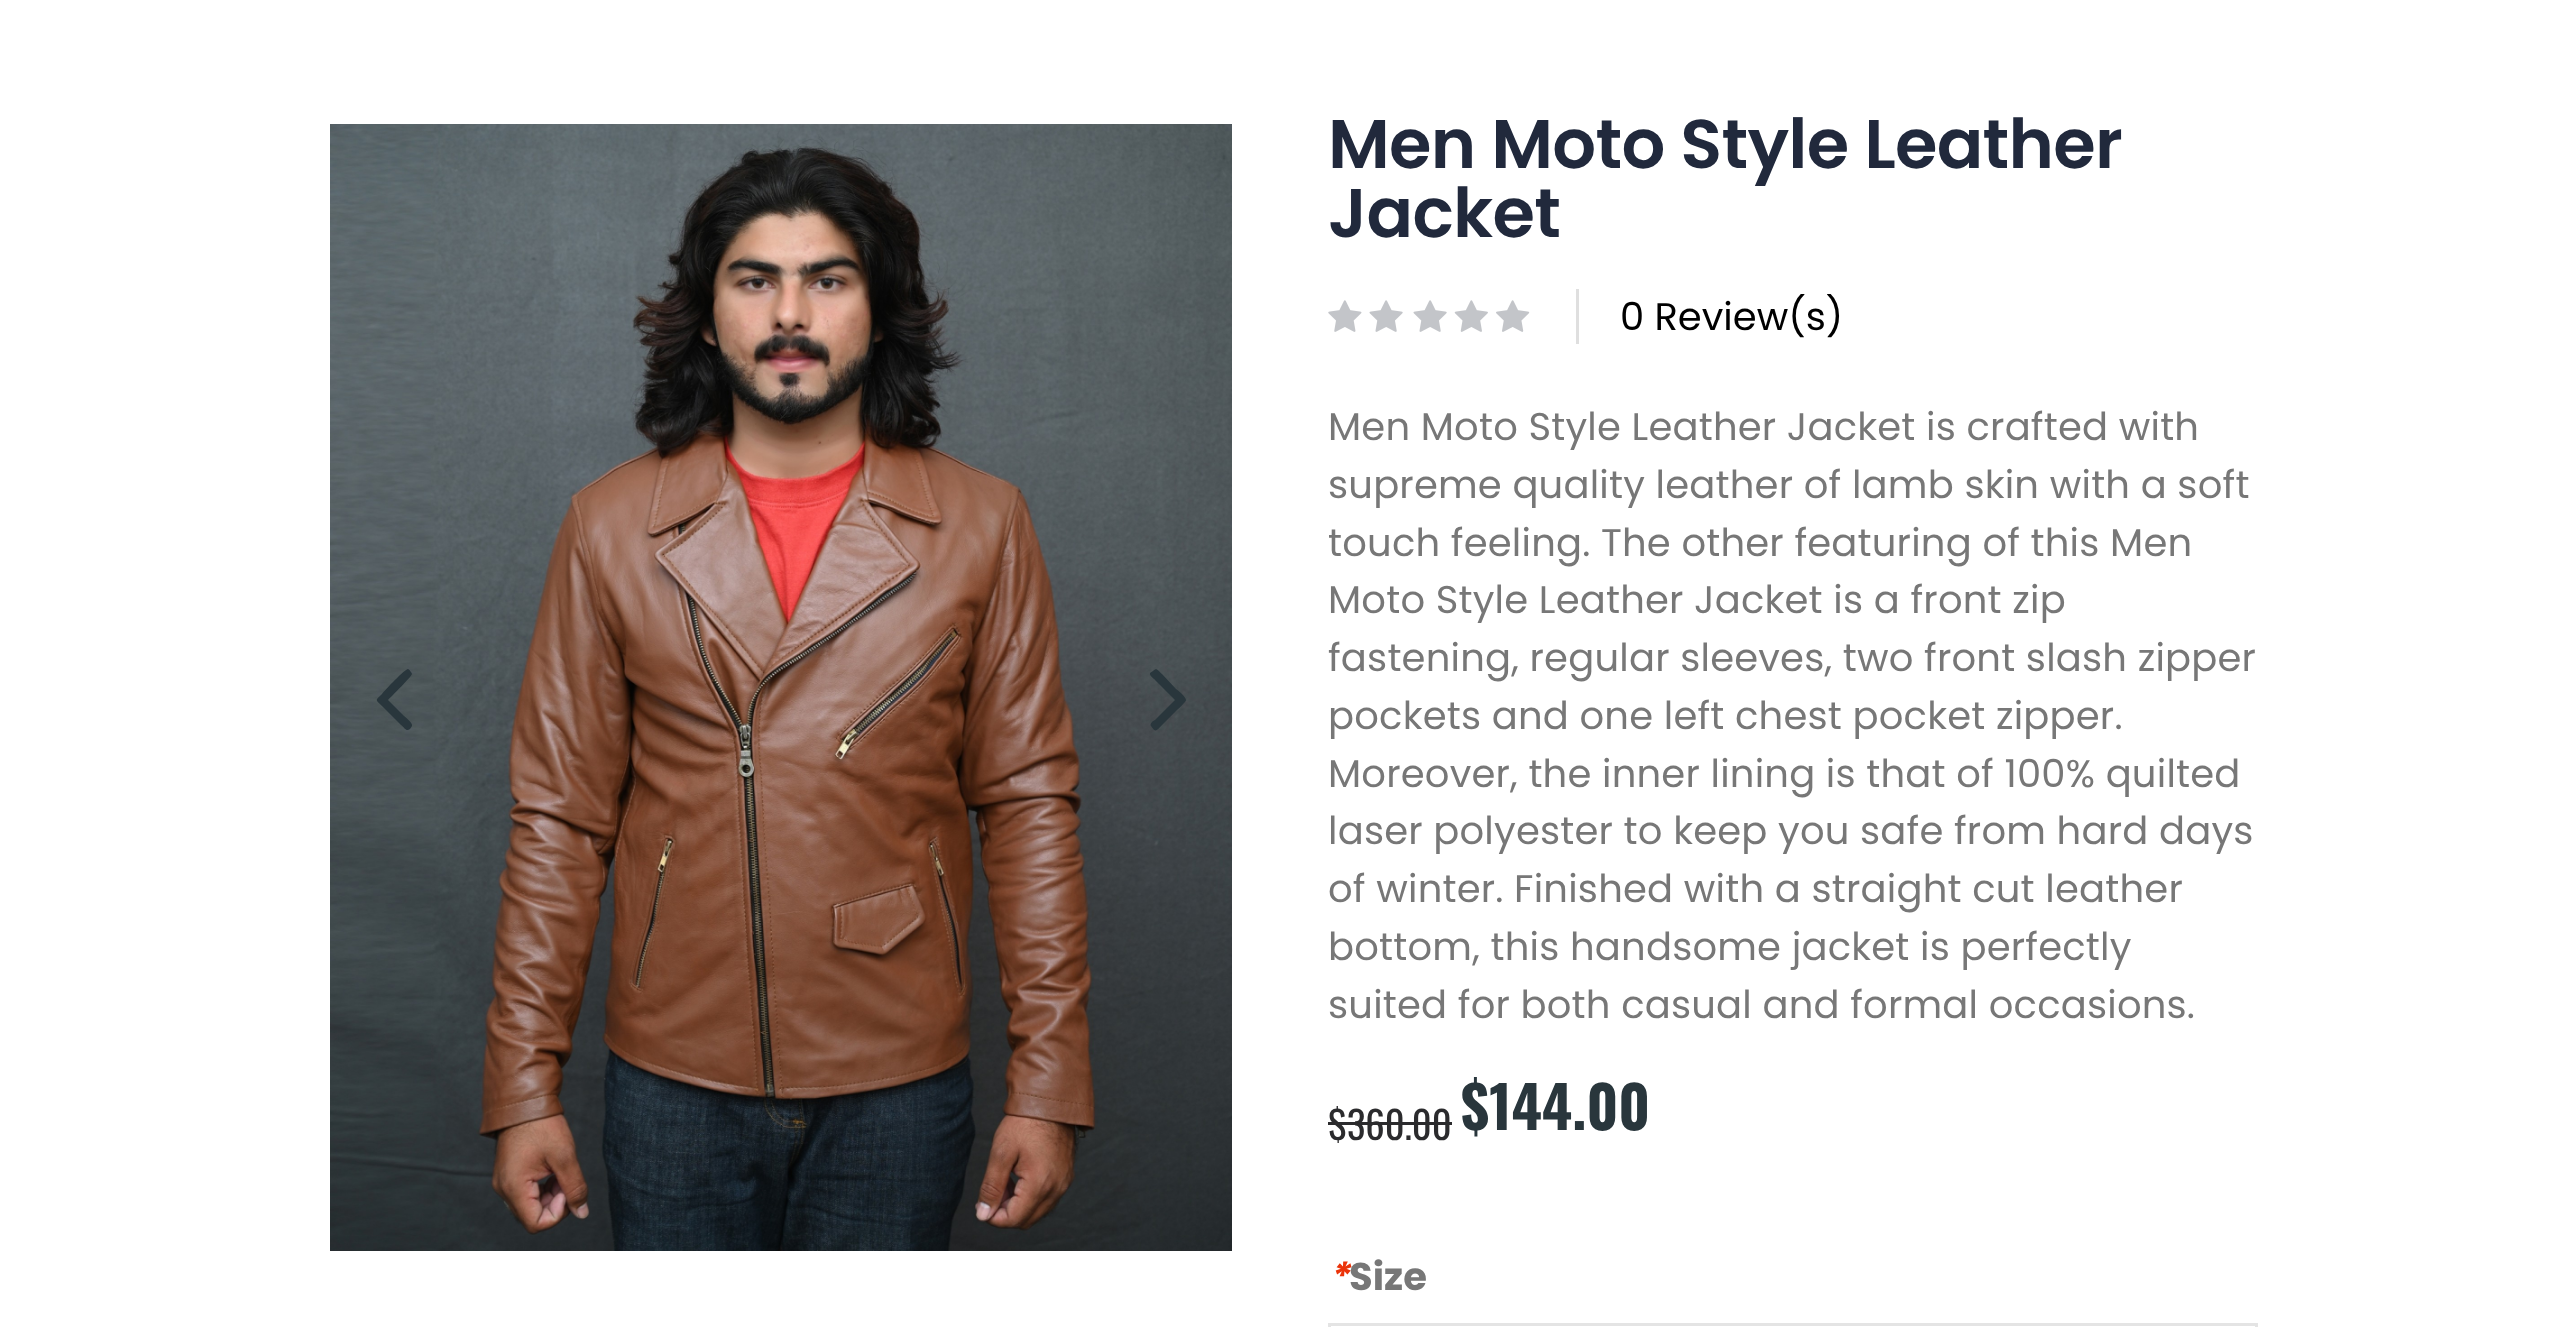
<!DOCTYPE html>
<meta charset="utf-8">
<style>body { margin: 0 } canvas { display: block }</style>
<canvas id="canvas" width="2573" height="1327"></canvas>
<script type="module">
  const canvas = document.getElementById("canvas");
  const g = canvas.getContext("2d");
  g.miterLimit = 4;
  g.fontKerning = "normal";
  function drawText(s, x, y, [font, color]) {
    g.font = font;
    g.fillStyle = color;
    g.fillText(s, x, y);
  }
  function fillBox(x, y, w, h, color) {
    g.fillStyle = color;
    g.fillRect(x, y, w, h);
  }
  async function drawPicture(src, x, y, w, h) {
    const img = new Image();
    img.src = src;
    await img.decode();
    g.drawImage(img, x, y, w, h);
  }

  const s1 = ["600 68.75px Poppins", "#21293C"];
  const s2 = ["38.5px Poppins", "#000000"];
  const s3 = ["38.5px Poppins", "#777777"];
  const s4 = ["38.5px Oswald", "#2B2B2D"];
  const s5 = ["bold 58px Oswald", "#29363C"];
  const s6 = ["italic bold 38.5px Poppins", "#EB340A"];
  const s7 = ["bold 38.5px Poppins", "#777777"];

  fillBox(0, 0, 2573, 1327, "#FFFFFF");
  await drawPicture("pic1.png", 330, 124, 902, 1127);
  g.fillStyle = "#29363C";
  g.beginPath();
  g.moveTo(412, 674);
  g.bezierCurveTo(412, 676, 391, 697, 388, 700);
  g.lineTo(404, 716);
  g.bezierCurveTo(405, 717, 413, 723, 412, 726);
  g.lineTo(410, 729);
  g.bezierCurveTo(406, 732, 405, 728, 401, 725);
  g.lineTo(382, 706);
  g.bezierCurveTo(375, 699, 375, 701, 382, 694);
  g.bezierCurveTo(385, 690, 405, 669, 408, 669);
  g.bezierCurveTo(409, 669, 412, 673, 412, 674);
  g.closePath();
  g.fill();
  g.beginPath();
  g.moveTo(1186, 700);
  g.bezierCurveTo(1186, 702, 1178, 709, 1176, 711);
  g.lineTo(1162, 725);
  g.bezierCurveTo(1156, 731, 1156, 733, 1151, 726);
  g.bezierCurveTo(1149, 724, 1154, 720, 1155, 720);
  g.lineTo(1175, 700);
  g.lineTo(1155, 680);
  g.bezierCurveTo(1155, 679, 1149, 676, 1150, 673);
  g.lineTo(1153, 671);
  g.bezierCurveTo(1157, 667, 1158, 671, 1162, 674);
  g.lineTo(1176, 689);
  g.bezierCurveTo(1178, 690, 1186, 697, 1186, 700);
  g.closePath();
  g.fill();
  g.letterSpacing = "-0.7px";
  drawText("Men Moto Style Leather", 1328, 168, s1);
  drawText("Jacket", 1328, 237, s1);
  await drawPicture("pic2.png", 1328, 300, 34, 32);
  await drawPicture("pic3.png", 1369, 300, 34, 32);
  await drawPicture("pic3.png", 1413, 300, 34, 32);
  await drawPicture("pic4.png", 1454, 300, 34, 32);
  await drawPicture("pic5.png", 1496, 300, 34, 32);
  fillBox(1576, 289, 3, 55, "#DFDFDF");
  g.letterSpacing = "0px";
  drawText("0 Review(s)", 1620, 330, s2);
  g.letterSpacing = "0.2px";
  drawText("Men Moto Style Leather Jacket is crafted with", 1328, 440, s3);
  drawText("supreme quality leather of lamb skin with a soft", 1328, 498, s3);
  drawText("touch feeling. The other featuring of this Men", 1328, 556, s3);
  drawText("Moto Style Leather Jacket is a front zip", 1328, 613, s3);
  drawText("fastening, regular sleeves, two front slash zipper", 1328, 671, s3);
  drawText("pockets and one left chest pocket zipper.", 1328, 729, s3);
  drawText("Moreover, the inner lining is that of 100% quilted", 1328, 787, s3);
  drawText("laser polyester to keep you safe from hard days", 1328, 844, s3);
  drawText("of winter. Finished with a straight cut leather", 1328, 902, s3);
  drawText("bottom, this handsome jacket is perfectly", 1328, 960, s3);
  drawText("suited for both casual and formal occasions.", 1328, 1018, s3);
  g.letterSpacing = "0px";
  drawText("$360.00", 1328, 1140, s4);
  fillBox(1328, 1122, 124, 3, "#2B2B2D");
  drawText("$144.00", 1461, 1130, s5);
  drawText("*", 1328, 1290, s6);
  drawText("Size", 1349, 1290, s7);
  g.strokeStyle = "#E4E4E4";
  g.lineWidth = 3;
  g.strokeRect(1329.5, 1324.5, 927, 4);
</script>
